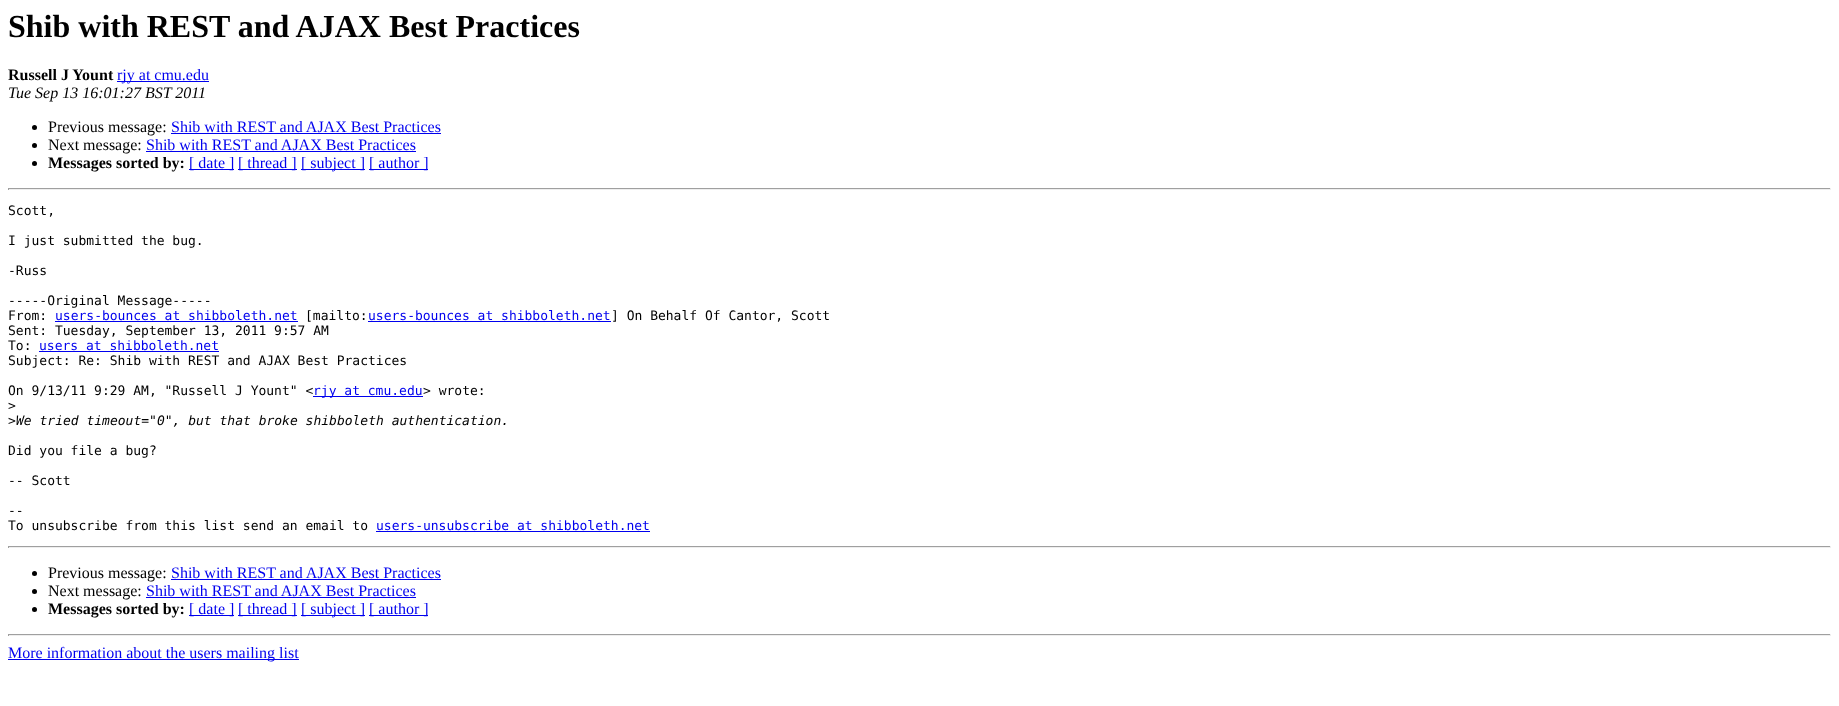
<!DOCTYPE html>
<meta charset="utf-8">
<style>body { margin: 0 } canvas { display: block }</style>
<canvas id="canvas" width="1839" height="706"></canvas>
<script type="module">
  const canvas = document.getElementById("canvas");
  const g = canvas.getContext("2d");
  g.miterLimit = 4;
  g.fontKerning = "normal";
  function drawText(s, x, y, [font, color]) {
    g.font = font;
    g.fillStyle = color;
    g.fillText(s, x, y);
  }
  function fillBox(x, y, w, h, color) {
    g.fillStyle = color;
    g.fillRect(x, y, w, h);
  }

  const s1 = ["bold 32px Liberation Serif", "#000000"];
  const s2 = ["bold 16px Liberation Serif", "#000000"];
  const s3 = ["16px Liberation Serif", "#0000EE"];
  const s4 = ["italic 16px Liberation Serif", "#000000"];
  const s5 = ["16px Liberation Serif", "#000000"];
  const s6 = ["13px DejaVu Sans Mono", "#000000"];
  const s7 = ["13px DejaVu Sans Mono", "#0000EE"];
  const s8 = ["italic 13px DejaVu Sans Mono", "#000000"];

  fillBox(0, 0, 1839, 706, "#FFFFFF");
  drawText("Shib with REST and AJAX Best Practices", 8, 37, s1);
  drawText("Russell J Yount", 8, 80, s2);
  fillBox(117, 81, 92, 1, "#0000EE");
  drawText("rjy at cmu.edu", 117, 80, s3);
  drawText("Tue Sep 13 16:01:27 BST 2011", 8, 98, s4);
  g.beginPath();
  g.arc(34.5, 127.5, 2.5, 0, Math.PI * 2);
  g.fill();
  drawText("Previous message:", 48, 132, s5);
  drawText("Shib with REST and AJAX Best Practices", 171, 132, s3);
  fillBox(171, 133, 270, 1, "#0000EE");
  g.fillStyle = "#000000";
  g.beginPath();
  g.arc(34.5, 145.5, 2.5, 0, Math.PI * 2);
  g.fill();
  drawText("Next message:", 48, 150, s5);
  drawText("Shib with REST and AJAX Best Practices", 146, 150, s3);
  fillBox(146, 151, 270, 1, "#0000EE");
  g.fillStyle = "#000000";
  g.beginPath();
  g.arc(34.5, 163.5, 2.5, 0, Math.PI * 2);
  g.fill();
  drawText("Messages sorted by:", 48, 168, s2);
  fillBox(189, 169, 45, 1, "#0000EE");
  drawText("[ date ]", 189, 168, s3);
  fillBox(238, 169, 59, 1, "#0000EE");
  drawText("[ thread ]", 238, 168, s3);
  fillBox(301, 169, 64, 1, "#0000EE");
  drawText("[ subject ]", 301, 168, s3);
  fillBox(369, 169, 59, 1, "#0000EE");
  drawText("[ author ]", 369, 168, s3);
  fillBox(8, 188, 1823, 1, "#9F9F9F");
  fillBox(1830, 188, 1, 2, "#EEEEEE");
  fillBox(8, 189, 1823, 1, "#EEEEEE");
  fillBox(8, 188, 1, 2, "#9F9F9F");
  drawText("Scott,", 8, 215, s6);
  drawText("I just submitted the bug.", 8, 245, s6);
  drawText("-Russ", 8, 275, s6);
  drawText("-----Original Message-----", 8, 305, s6);
  drawText("From:", 8, 320, s6);
  drawText("users-bounces at shibboleth.net", 55, 320, s7);
  fillBox(55, 321, 243, 1, "#0000EE");
  drawText("[mailto:", 305, 320, s6);
  drawText("users-bounces at shibboleth.net", 368, 320, s7);
  fillBox(368, 321, 243, 1, "#0000EE");
  drawText("] On Behalf Of Cantor, Scott", 611, 320, s6);
  drawText("Sent: Tuesday, September 13, 2011 9:57 AM", 8, 335, s6);
  drawText("To:", 8, 350, s6);
  drawText("users at shibboleth.net", 39, 350, s7);
  fillBox(39, 351, 180, 1, "#0000EE");
  drawText("Subject: Re: Shib with REST and AJAX Best Practices", 8, 365, s6);
  drawText("On 9/13/11 9:29 AM, \"Russell J Yount\" <", 8, 395, s6);
  fillBox(313, 396, 110, 1, "#0000EE");
  drawText("rjy at cmu.edu", 313, 395, s7);
  drawText("> wrote:", 423, 395, s6);
  drawText(">", 8, 410, s6);
  drawText(">", 8, 425, s6);
  drawText("We tried timeout=\"0\", but that broke shibboleth authentication.", 16, 425, s8);
  drawText("Did you file a bug?", 8, 455, s6);
  drawText("-- Scott", 8, 485, s6);
  drawText("--", 8, 515, s6);
  drawText("To unsubscribe from this list send an email to", 8, 530, s6);
  drawText("users-unsubscribe at shibboleth.net", 376, 530, s7);
  fillBox(376, 531, 274, 1, "#0000EE");
  fillBox(8, 546, 1823, 1, "#9F9F9F");
  fillBox(1830, 546, 1, 2, "#EEEEEE");
  fillBox(8, 547, 1823, 1, "#EEEEEE");
  fillBox(8, 546, 1, 2, "#9F9F9F");
  g.fillStyle = "#000000";
  g.beginPath();
  g.arc(34.5, 573.5, 2.5, 0, Math.PI * 2);
  g.fill();
  drawText("Previous message:", 48, 578, s5);
  drawText("Shib with REST and AJAX Best Practices", 171, 578, s3);
  fillBox(171, 579, 270, 1, "#0000EE");
  g.fillStyle = "#000000";
  g.beginPath();
  g.arc(34.5, 591.5, 2.5, 0, Math.PI * 2);
  g.fill();
  drawText("Next message:", 48, 596, s5);
  drawText("Shib with REST and AJAX Best Practices", 146, 596, s3);
  fillBox(146, 597, 270, 1, "#0000EE");
  g.fillStyle = "#000000";
  g.beginPath();
  g.arc(34.5, 609.5, 2.5, 0, Math.PI * 2);
  g.fill();
  drawText("Messages sorted by:", 48, 614, s2);
  fillBox(189, 615, 45, 1, "#0000EE");
  drawText("[ date ]", 189, 614, s3);
  fillBox(238, 615, 59, 1, "#0000EE");
  drawText("[ thread ]", 238, 614, s3);
  fillBox(301, 615, 64, 1, "#0000EE");
  drawText("[ subject ]", 301, 614, s3);
  fillBox(369, 615, 59, 1, "#0000EE");
  drawText("[ author ]", 369, 614, s3);
  fillBox(8, 634, 1823, 1, "#9F9F9F");
  fillBox(1830, 634, 1, 2, "#EEEEEE");
  fillBox(8, 635, 1823, 1, "#EEEEEE");
  fillBox(8, 634, 1, 2, "#9F9F9F");
  fillBox(8, 659, 291, 1, "#0000EE");
  drawText("More information about the users mailing list", 8, 658, s3);
</script>
